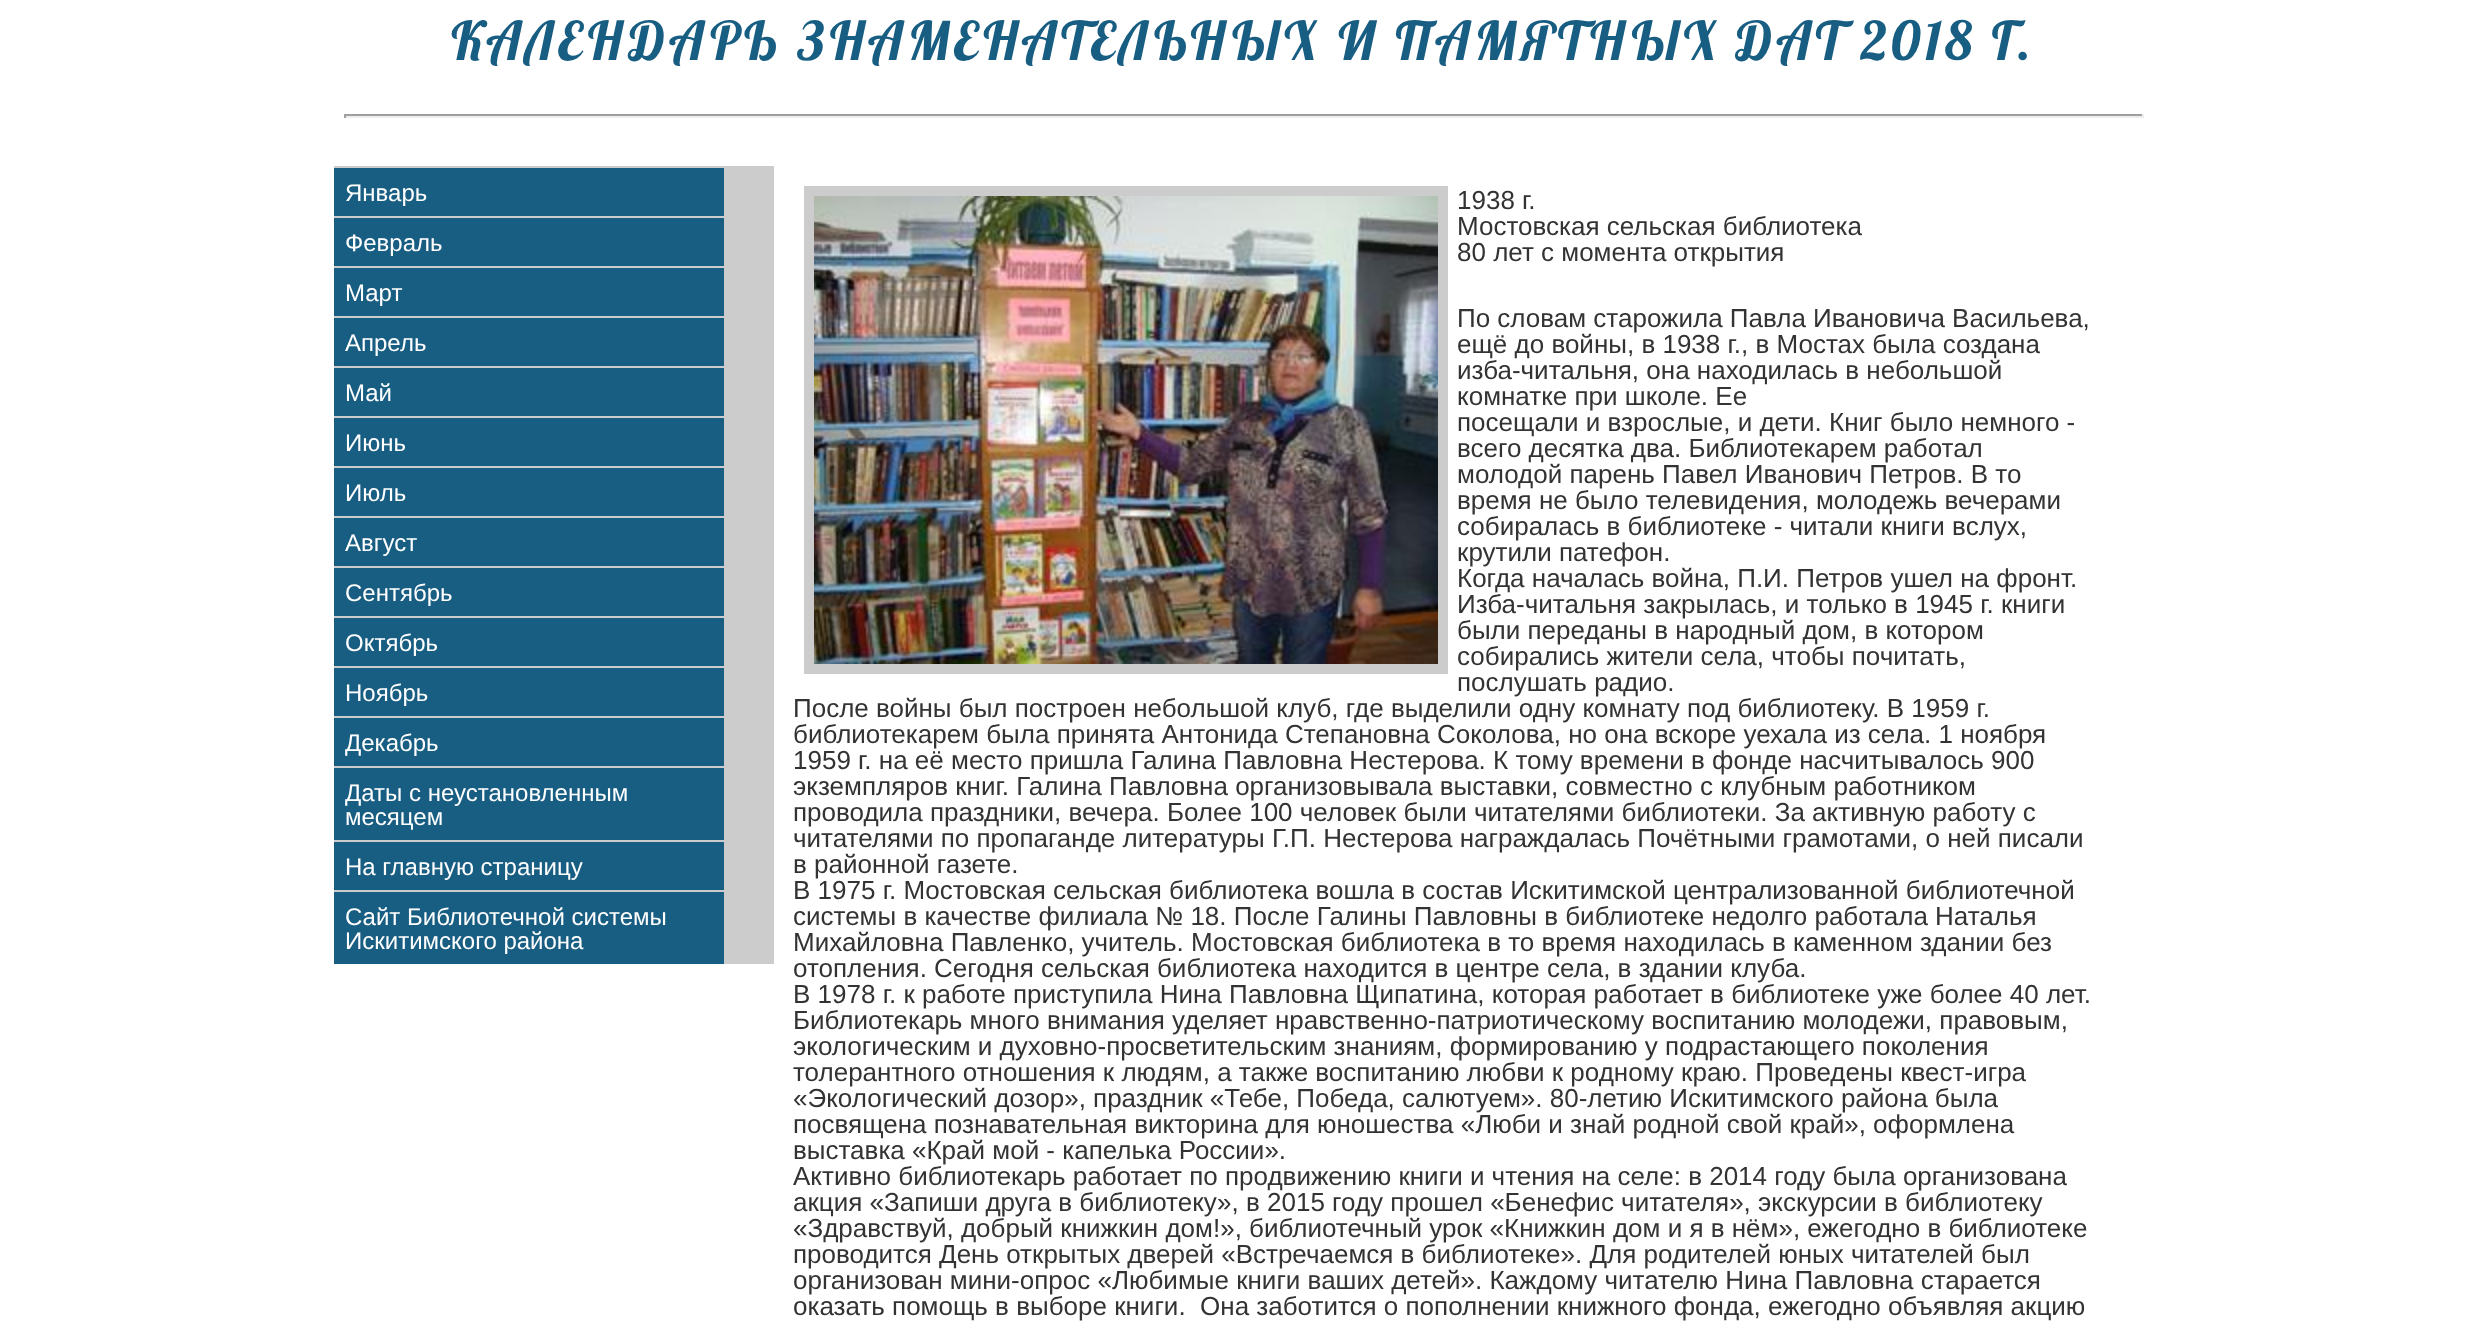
<!DOCTYPE html>
<meta charset="utf-8">
<style>body { margin: 0 } canvas { display: block }</style>
<canvas id="canvas" width="2466" height="1329"></canvas>
<script type="module">
  const canvas = document.getElementById("canvas");
  const g = canvas.getContext("2d");
  g.miterLimit = 4;
  g.fontKerning = "normal";
  function drawText(s, x, y, [font, color]) {
    g.font = font;
    g.fillStyle = color;
    g.fillText(s, x, y);
  }
  function fillBox(x, y, w, h, color) {
    g.fillStyle = color;
    g.fillRect(x, y, w, h);
  }
  async function drawPicture(src, x, y, w, h) {
    const img = new Image();
    img.src = src;
    await img.decode();
    g.drawImage(img, x, y, w, h);
  }

  const s1 = ["53.3px Lobster", "#185D82"];
  const s2 = ["24px Liberation Sans", "#FFFFFF"];
  const s3 = ["26px Liberation Sans", "#333333"];

  fillBox(0, 0, 2466, 1329, "#FFFFFF");
  g.letterSpacing = "4px";
  drawText("КАЛЕНДАРЬ ЗНАМЕНАТЕЛЬНЫХ", 451, 60, s1);
  drawText("И ПАМЯТНЫХ ДАТ 2018 Г.", 1338, 60, s1);
  fillBox(344, 114, 1800, 2, "#9F9F9F");
  fillBox(2142, 114, 2, 4, "#EEEEEE");
  fillBox(344, 116, 1800, 2, "#EEEEEE");
  fillBox(344, 114, 2, 4, "#9F9F9F");
  fillBox(334, 166, 440, 798, "#CCCCCC");
  fillBox(334, 168, 390, 48, "#185D82");
  g.letterSpacing = "0px";
  drawText("Январь", 345, 201, s2);
  fillBox(334, 218, 390, 48, "#185D82");
  drawText("Февраль", 345, 251, s2);
  fillBox(334, 268, 390, 48, "#185D82");
  drawText("Март", 345, 301, s2);
  fillBox(334, 318, 390, 48, "#185D82");
  drawText("Апрель", 345, 351, s2);
  fillBox(334, 368, 390, 48, "#185D82");
  drawText("Май", 345, 401, s2);
  fillBox(334, 418, 390, 48, "#185D82");
  drawText("Июнь", 345, 451, s2);
  fillBox(334, 468, 390, 48, "#185D82");
  drawText("Июль", 345, 501, s2);
  fillBox(334, 518, 390, 48, "#185D82");
  drawText("Август", 345, 551, s2);
  fillBox(334, 568, 390, 48, "#185D82");
  drawText("Сентябрь", 345, 601, s2);
  fillBox(334, 618, 390, 48, "#185D82");
  drawText("Октябрь", 345, 651, s2);
  fillBox(334, 668, 390, 48, "#185D82");
  drawText("Ноябрь", 345, 701, s2);
  fillBox(334, 718, 390, 48, "#185D82");
  drawText("Декабрь", 345, 751, s2);
  fillBox(334, 768, 390, 72, "#185D82");
  drawText("Даты с неустановленным", 345, 801, s2);
  drawText("месяцем", 345, 825, s2);
  fillBox(334, 842, 390, 48, "#185D82");
  drawText("На главную страницу", 345, 875, s2);
  fillBox(334, 892, 390, 72, "#185D82");
  drawText("Сайт Библиотечной системы", 345, 925, s2);
  drawText("Искитимского района", 345, 949, s2);
  g.strokeStyle = "#CCCCCC";
  g.lineWidth = 10;
  g.strokeRect(809, 191, 634, 478);
  await drawPicture("pic1.png", 814, 196, 624, 468);
  drawText("1938 г.", 1457, 209, s3);
  drawText("Мостовская сельская библиотека", 1457, 235, s3);
  drawText("80 лет с момента открытия", 1457, 261, s3);
  drawText("По словам старожила Павла Ивановича Васильева,", 1457, 327, s3);
  drawText("ещё до войны, в 1938 г., в Мостах была создана", 1457, 353, s3);
  drawText("изба-читальня, она находилась в небольшой", 1457, 379, s3);
  drawText("комнатке при школе. Ее", 1457, 405, s3);
  drawText("посещали и взрослые, и дети. Книг было немного -", 1457, 431, s3);
  drawText("всего десятка два. Библиотекарем работал", 1457, 457, s3);
  drawText("молодой парень Павел Иванович Петров. В то", 1457, 483, s3);
  drawText("время не было телевидения, молодежь вечерами", 1457, 509, s3);
  drawText("собиралась в библиотеке - читали книги вслух,", 1457, 535, s3);
  drawText("крутили патефон.", 1457, 561, s3);
  drawText("Когда началась война, П.И. Петров ушел на фронт.", 1457, 587, s3);
  drawText("Изба-читальня закрылась, и только в 1945 г. книги", 1457, 613, s3);
  drawText("были переданы в народный дом, в котором", 1457, 639, s3);
  drawText("собирались жители села, чтобы почитать,", 1457, 665, s3);
  drawText("послушать радио.", 1457, 691, s3);
  drawText("После войны был построен небольшой клуб, где выделили одну комнату под библиотеку. В 1959 г.", 793, 717, s3);
  drawText("библиотекарем была принята Антонида Степановна Соколова, но она вскоре уехала из села. 1 ноября", 793, 743, s3);
  drawText("1959 г. на её место пришла Галина Павловна Нестерова. К тому времени в фонде насчитывалось 900", 793, 769, s3);
  drawText("экземпляров книг. Галина Павловна организовывала выставки, совместно с клубным работником", 793, 795, s3);
  drawText("проводила праздники, вечера. Более 100 человек были читателями библиотеки. За активную работу с", 793, 821, s3);
  drawText("читателями по пропаганде литературы Г.П. Нестерова награждалась Почётными грамотами, о ней писали", 793, 847, s3);
  drawText("в районной газете.", 793, 873, s3);
  drawText("В 1975 г. Мостовская сельская библиотека вошла в состав Искитимской централизованной библиотечной", 793, 899, s3);
  drawText("системы в качестве филиала № 18. После Галины Павловны в библиотеке недолго работала Наталья", 793, 925, s3);
  drawText("Михайловна Павленко, учитель. Мостовская библиотека в то время находилась в каменном здании без", 793, 951, s3);
  drawText("отопления. Сегодня сельская библиотека находится в центре села, в здании клуба.", 793, 977, s3);
  drawText("В 1978 г. к работе приступила Нина Павловна Щипатина, которая работает в библиотеке уже более 40 лет.", 793, 1003, s3);
  drawText("Библиотекарь много внимания уделяет нравственно-патриотическому воспитанию молодежи, правовым,", 793, 1029, s3);
  drawText("экологическим и духовно-просветительским знаниям, формированию у подрастающего поколения", 793, 1055, s3);
  drawText("толерантного отношения к людям, а также воспитанию любви к родному краю. Проведены квест-игра", 793, 1081, s3);
  drawText("«Экологический дозор», праздник «Тебе, Победа, салютуем». 80-летию Искитимского района была", 793, 1107, s3);
  drawText("посвящена познавательная викторина для юношества «Люби и знай родной свой край», оформлена", 793, 1133, s3);
  drawText("выставка «Край мой - капелька России».", 793, 1159, s3);
  drawText("Активно библиотекарь работает по продвижению книги и чтения на селе: в 2014 году была организована", 793, 1185, s3);
  drawText("акция «Запиши друга в библиотеку», в 2015 году прошел «Бенефис читателя», экскурсии в библиотеку", 793, 1211, s3);
  drawText("«Здравствуй, добрый книжкин дом!», библиотечный урок «Книжкин дом и я в нём», ежегодно в библиотеке", 793, 1237, s3);
  drawText("проводится День открытых дверей «Встречаемся в библиотеке». Для родителей юных читателей был", 793, 1263, s3);
  drawText("организован мини-опрос «Любимые книги ваших детей». Каждому читателю Нина Павловна старается", 793, 1289, s3);
  drawText("оказать помощь в выборе книги.  Она заботится о пополнении книжного фонда, ежегодно объявляя акцию", 793, 1315, s3);
</script>
